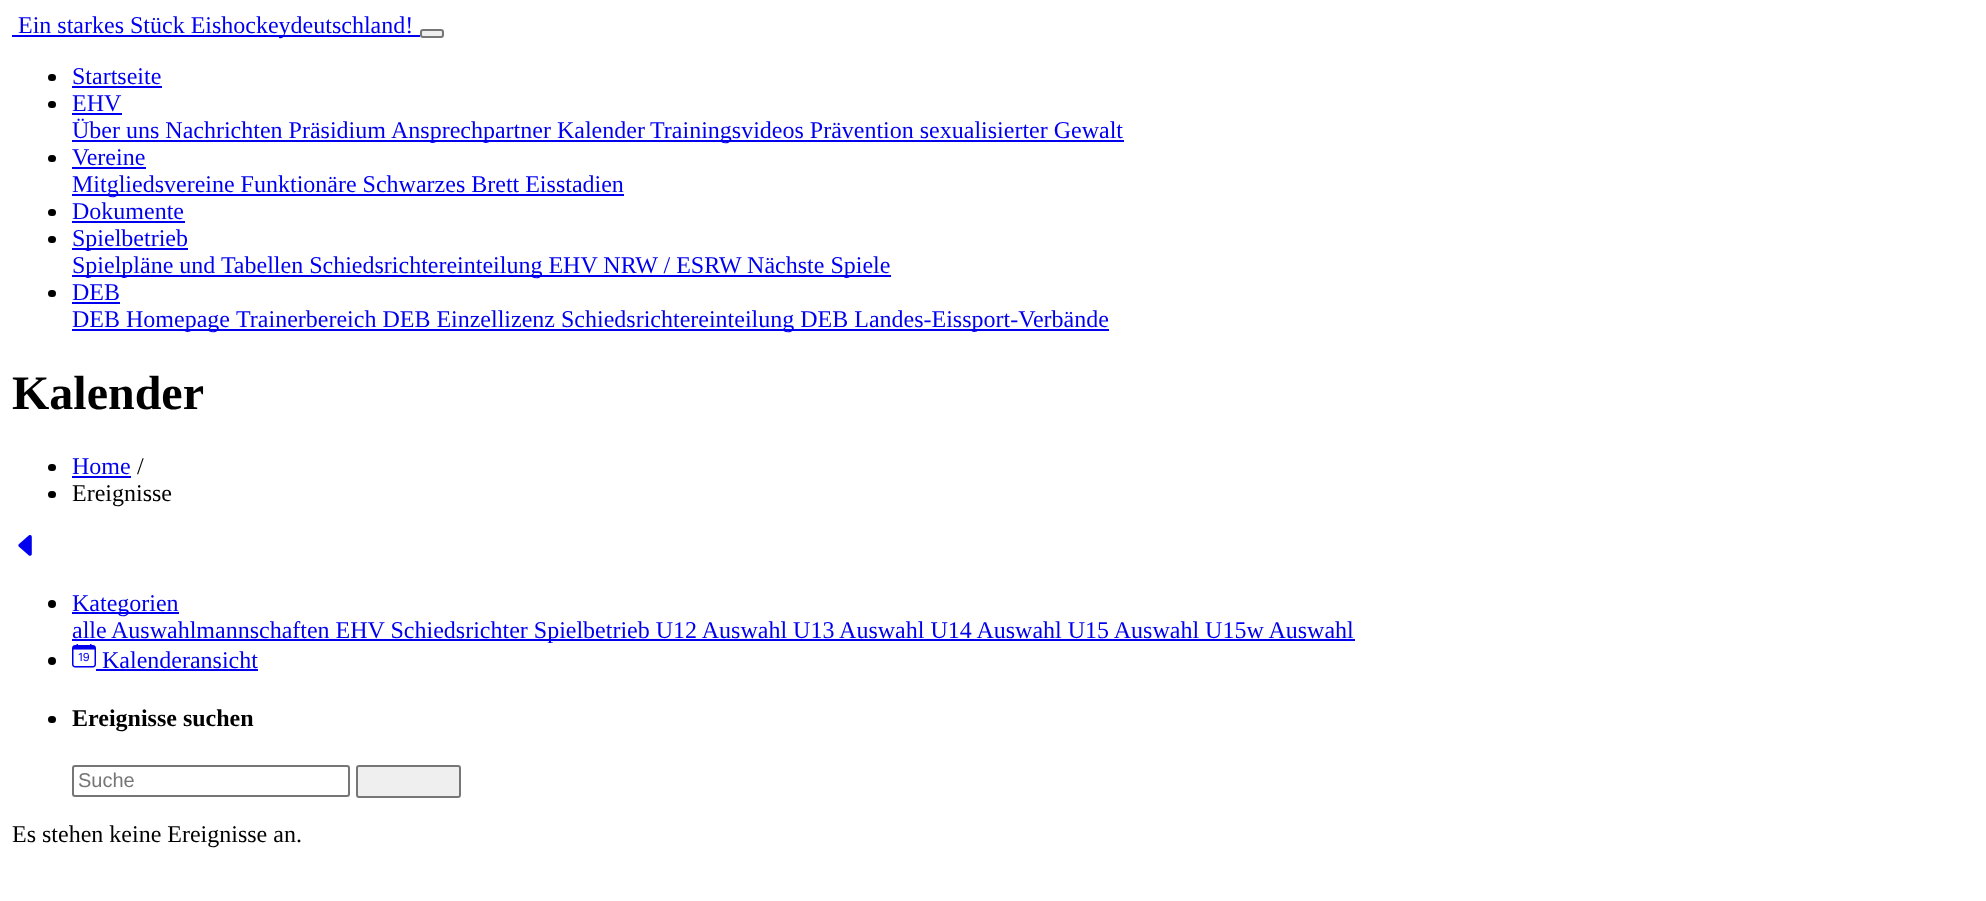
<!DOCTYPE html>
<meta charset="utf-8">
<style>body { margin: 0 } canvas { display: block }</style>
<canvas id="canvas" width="1986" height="901"></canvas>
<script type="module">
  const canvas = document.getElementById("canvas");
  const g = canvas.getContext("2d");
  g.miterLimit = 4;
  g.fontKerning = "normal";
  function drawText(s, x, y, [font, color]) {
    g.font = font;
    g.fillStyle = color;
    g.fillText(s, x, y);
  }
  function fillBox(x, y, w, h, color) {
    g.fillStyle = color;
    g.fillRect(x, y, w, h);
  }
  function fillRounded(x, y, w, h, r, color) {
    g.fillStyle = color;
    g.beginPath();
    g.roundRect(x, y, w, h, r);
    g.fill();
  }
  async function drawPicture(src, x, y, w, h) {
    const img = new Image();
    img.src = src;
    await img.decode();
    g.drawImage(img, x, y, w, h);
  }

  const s1 = ["24px Liberation Serif", "#0000EE"];
  const s2 = ["bold 48px Liberation Serif", "#000000"];
  const s3 = ["24px Liberation Serif", "#000000"];
  const s4 = ["bold 24px Liberation Serif", "#000000"];
  const s5 = ["20px Liberation Sans", "#757575"];

  fillBox(0, 0, 1986, 901, "#FFFFFF");
  fillBox(12, 35, 408, 2, "#0000EE");
  drawText("Ein starkes Stück Eishockeydeutschland!", 18, 33, s1);
  g.fillStyle = "#EFEFEF";
  g.beginPath();
  g.roundRect(421, 30, 22, 7, 2);
  g.fill();
  g.strokeStyle = "#767676";
  g.lineWidth = 2;
  g.stroke();
  fillRounded(48, 74, 8, 7, 3.5, "#000000");
  drawText("Startseite", 72, 84, s1);
  fillBox(72, 86, 90, 2, "#0000EE");
  fillRounded(48, 101, 8, 7, 3.5, "#000000");
  drawText("EHV", 72, 111, s1);
  fillBox(72, 113, 50, 2, "#0000EE");
  drawText("Über uns Nachrichten Präsidium", 72, 138, s1);
  fillBox(72, 140, 1052, 2, "#0000EE");
  drawText("Ansprechpartner Kalender", 391, 138, s1);
  drawText("Trainingsvideos Prävention sexualisierter Gewalt", 650, 138, s1);
  fillRounded(48, 155, 8, 7, 3.5, "#000000");
  drawText("Vereine", 72, 165, s1);
  fillBox(72, 167, 74, 2, "#0000EE");
  fillBox(72, 194, 552, 2, "#0000EE");
  drawText("Mitgliedsvereine Funktionäre Schwarzes Brett Eisstadien", 72, 192, s1);
  fillRounded(48, 209, 8, 7, 3.5, "#000000");
  drawText("Dokumente", 72, 219, s1);
  fillBox(72, 221, 113, 2, "#0000EE");
  fillRounded(48, 236, 8, 7, 3.5, "#000000");
  fillBox(72, 248, 116, 2, "#0000EE");
  drawText("Spielbetrieb", 72, 246, s1);
  fillBox(72, 275, 819, 2, "#0000EE");
  drawText("Spielpläne und Tabellen Schiedsrichtereinteilung EHV NRW / ESRW Nächste Spiele", 72, 273, s1);
  fillRounded(48, 290, 8, 7, 3.5, "#000000");
  drawText("DEB", 72, 300, s1);
  fillBox(72, 302, 48, 2, "#0000EE");
  fillBox(72, 329, 1037, 2, "#0000EE");
  drawText("DEB Homepage", 72, 327, s1);
  drawText("Trainerbereich DEB Einzellizenz Schiedsrichtereinteilung DEB Landes-Eissport-Verbände", 236, 327, s1);
  drawText("Kalender", 12, 409, s2);
  fillRounded(48, 464, 8, 7, 3.5, "#000000");
  drawText("Home", 72, 474, s1);
  fillBox(72, 476, 59, 2, "#0000EE");
  drawText("/", 137, 474, s3);
  fillRounded(48, 491, 8, 7, 3.5, "#000000");
  drawText("Ereignisse", 72, 501, s3);
  await drawPicture("pic1.png", 18, 535, 14, 21);
  g.beginPath();
  g.arc(52, 604, 4, 0, Math.PI * 2);
  g.fill();
  fillBox(72, 612, 107, 2, "#0000EE");
  drawText("Kategorien", 72, 611, s1);
  drawText("alle", 72, 638, s1);
  fillBox(72, 639, 1283, 2, "#0000EE");
  drawText("Auswahlmannschaften EHV Schiedsrichter Spielbetrieb U12 Auswahl U13 Auswahl U14 Auswahl U15 Auswahl U15w Auswahl", 111, 638, s1);
  g.fillStyle = "#000000";
  g.beginPath();
  g.arc(52, 661, 4, 0, Math.PI * 2);
  g.fill();
  await drawPicture("pic2.png", 72, 644, 24, 24);
  drawText("Kalenderansicht", 102, 668, s1);
  fillBox(96, 669, 162, 2, "#0000EE");
  fillRounded(48, 716, 8, 7, 3.5, "#000000");
  drawText("Ereignisse suchen", 72, 726, s4);
  g.beginPath();
  g.roundRect(73, 766, 276, 30, 2);
  g.stroke();
  drawText("Suche", 78, 787, s5);
  g.fillStyle = "#EFEFEF";
  g.beginPath();
  g.roundRect(357, 766, 103, 31, 2);
  g.fill();
  g.stroke();
  drawText("Es stehen keine Ereignisse an.", 12, 842, s3);
</script>
